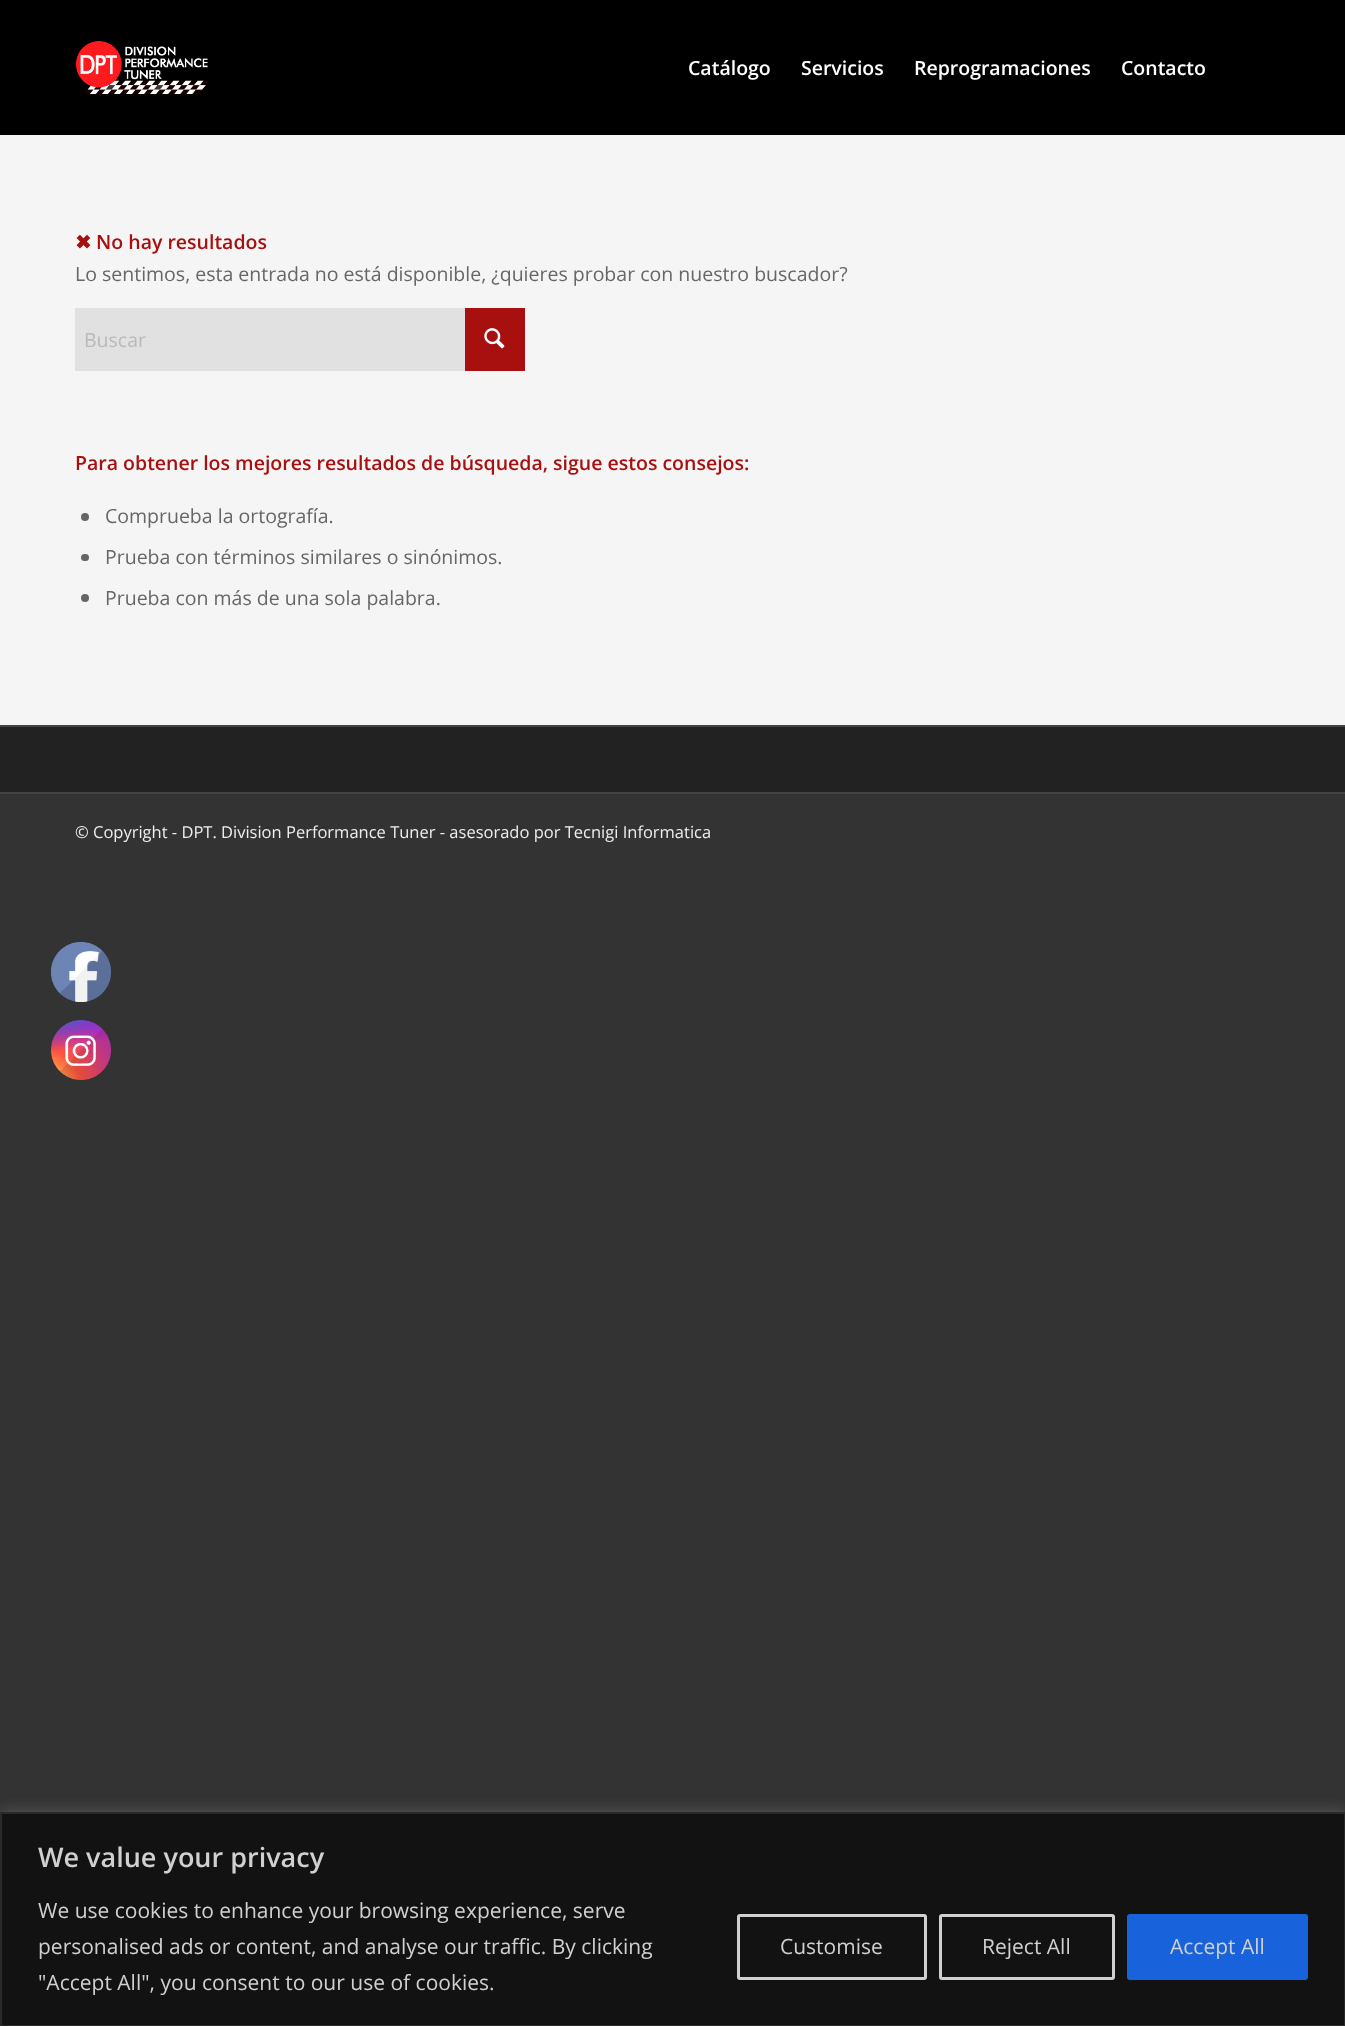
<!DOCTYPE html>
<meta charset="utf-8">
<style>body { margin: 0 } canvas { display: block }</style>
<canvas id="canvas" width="1345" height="2026"></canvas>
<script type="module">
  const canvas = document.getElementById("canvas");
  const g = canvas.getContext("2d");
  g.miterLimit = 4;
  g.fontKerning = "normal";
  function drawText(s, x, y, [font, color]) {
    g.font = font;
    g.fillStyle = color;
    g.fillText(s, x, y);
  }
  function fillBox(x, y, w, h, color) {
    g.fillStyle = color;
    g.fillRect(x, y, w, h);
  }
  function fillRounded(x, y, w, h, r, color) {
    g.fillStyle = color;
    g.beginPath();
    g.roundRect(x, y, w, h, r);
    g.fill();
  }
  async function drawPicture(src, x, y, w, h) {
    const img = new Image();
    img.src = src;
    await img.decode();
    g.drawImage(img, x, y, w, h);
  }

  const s1 = ["600 19.5px Open Sans", "#FFFFFF"];
  const s2 = ["bold 19.5px DejaVu Sans", "#A81010"];
  const s3 = ["600 19.5px Open Sans", "#A81010"];
  const s4 = ["19.5px Open Sans", "#666666"];
  const s5 = ["19.5px Open Sans", "#B9B9B9"];
  const s6 = ["16.5px Open Sans", "#EEEEEE"];
  const s7 = ["600 27px Open Sans", "#D0D0D0"];
  const s8 = ["21px Open Sans", "#D0D0D0"];

  fillBox(0, 0, 1345, 2026, "#333333");
  fillBox(0, 0, 1345, 135, "#000000");
  await drawPicture("pic1.png", 76, 40, 133, 55);
  drawText("Catálogo", 688, 75, s1);
  drawText("Servicios", 801, 75, s1);
  drawText("Reprogramaciones", 914, 75, s1);
  drawText("Contacto", 1121, 75, s1);
  fillBox(0, 135, 1345, 590, "#F5F5F5");
  drawText("✖", 75, 249, s2);
  drawText("No hay resultados", 96, 249, s3);
  drawText("Lo sentimos, esta entrada no está disponible, ¿quieres probar con nuestro buscador?", 75, 281, s4);
  fillBox(465, 308, 60, 63, "#A81010");
  fillBox(75, 308, 390, 63, "#E1E1E1");
  drawText("Buscar", 84, 347, s5);
  await drawPicture("pic2.png", 484, 328, 21, 21);
  drawText("Para obtener los mejores resultados de búsqueda, sigue estos consejos:", 75, 470, s3);
  g.fillStyle = "#666666";
  g.beginPath();
  g.arc(85, 517, 4, 0, Math.PI * 2);
  g.fill();
  drawText("Comprueba la ortografía.", 105, 523, s4);
  fillRounded(81, 554, 8, 7, 3.5, "#666666");
  drawText("Prueba con términos similares o sinónimos.", 105, 564, s4);
  g.beginPath();
  g.arc(85, 598, 4, 0, Math.PI * 2);
  g.fill();
  drawText("Prueba con más de una sola palabra.", 105, 605, s4);
  fillBox(0, 727, 1345, 65, "#222222");
  fillBox(0, 725, 1345, 2, "#444444");
  fillBox(0, 792, 1345, 2, "#444444");
  drawText("© Copyright - DPT. Division Performance Tuner - asesorado por Tecnigi Informatica", 75, 838, s6);
  await drawPicture("pic3.png", 51, 942, 60, 60);
  await drawPicture("pic4.png", 51, 1020, 60, 60);
  g.fillStyle = "rgba(172, 171, 171, 0.3)";
  g.filter = "blur(7.5px)";
  g.beginPath();
  g.rect(0, 1811, 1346, 214);
  g.fill();
  g.filter = "none";
  g.fillStyle = "#121212";
  g.beginPath();
  g.rect(1, 1813, 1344, 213);
  g.fill();
  g.strokeStyle = "#2A2A2A";
  g.lineWidth = 2;
  g.stroke();
  drawText("We value your privacy", 38, 1867, s7);
  drawText("We use cookies to enhance your browsing experience, serve", 38, 1918, s8);
  drawText("personalised ads or content, and analyse our traffic. By clicking", 38, 1954, s8);
  drawText("\"Accept All\", you consent to our use of cookies.", 38, 1990, s8);
  g.beginPath();
  g.roundRect(738.5, 1915.5, 187, 63, 1.5);
  g.strokeStyle = "#D0D0D0";
  g.lineWidth = 3;
  g.stroke();
  drawText("Customise", 780, 1954, s8);
  g.beginPath();
  g.roundRect(940.5, 1915.5, 173, 63, 1.5);
  g.stroke();
  drawText("Reject All", 982, 1954, s8);
  g.fillStyle = "#1863DC";
  g.beginPath();
  g.roundRect(1128.5, 1915.5, 178, 63, 1.5);
  g.fill();
  g.strokeStyle = "#1863DC";
  g.stroke();
  drawText("Accept All", 1170, 1954, s8);
</script>
